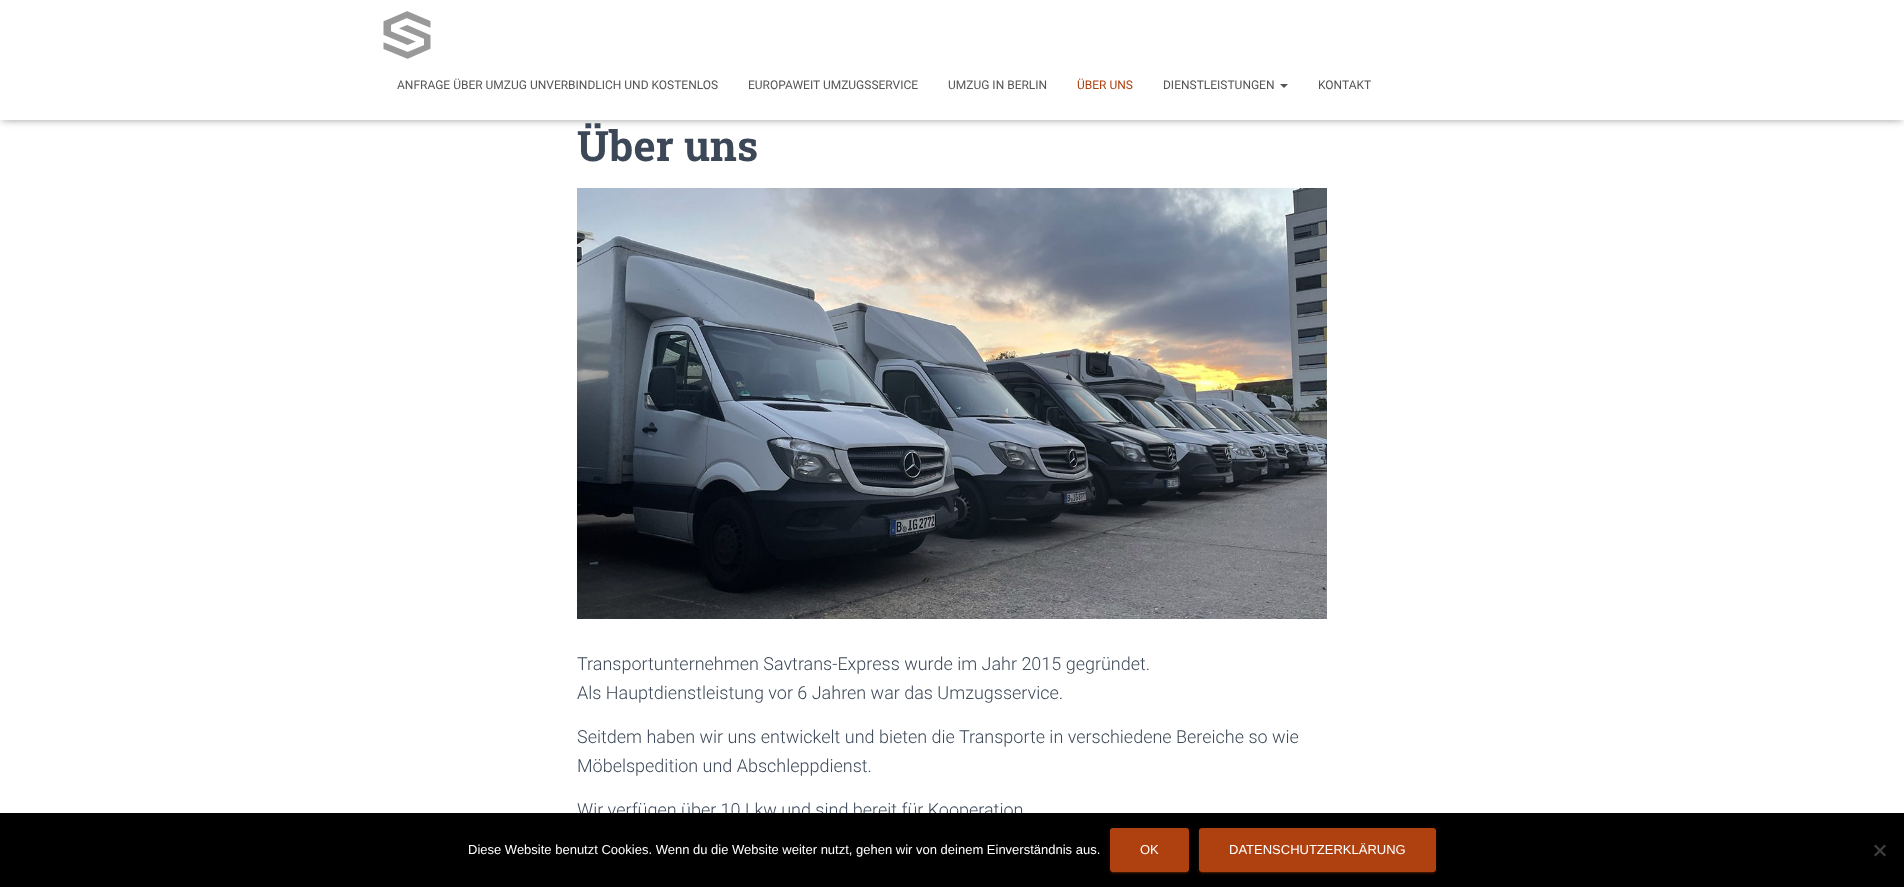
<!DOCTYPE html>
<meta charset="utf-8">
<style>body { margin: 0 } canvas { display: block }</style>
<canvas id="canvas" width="1904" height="887"></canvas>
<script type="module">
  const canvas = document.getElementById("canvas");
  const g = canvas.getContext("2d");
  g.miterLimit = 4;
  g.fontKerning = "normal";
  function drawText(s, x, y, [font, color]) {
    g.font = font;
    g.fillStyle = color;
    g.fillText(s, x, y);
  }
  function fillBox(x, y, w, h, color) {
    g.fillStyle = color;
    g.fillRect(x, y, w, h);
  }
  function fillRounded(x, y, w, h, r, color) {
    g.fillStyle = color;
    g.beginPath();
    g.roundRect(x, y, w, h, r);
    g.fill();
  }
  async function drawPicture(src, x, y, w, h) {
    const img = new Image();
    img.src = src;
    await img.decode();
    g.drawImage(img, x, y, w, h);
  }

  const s1 = ["12px Roboto", "#555555"];
  const s2 = ["12px Roboto", "#AF4111"];
  const s3 = ["bold 42px Roboto Slab", "#3C4858"];
  const s4 = ["300 18px Roboto", "#3C4858"];
  const s5 = ["13px Liberation Sans", "#FFFFFF"];

  fillBox(0, 0, 1904, 887, "#FFFFFF");
  g.fillStyle = "rgba(0, 0, 0, 0.1)";
  g.filter = "blur(2.5px)";
  g.beginPath();
  g.rect(2, 6, 1900, 116);
  g.fill();
  g.filter = "none";
  g.fillStyle = "rgba(0, 0, 0, 0.12)";
  g.filter = "blur(5px)";
  g.beginPath();
  g.rect(0, 1, 1904, 120);
  g.fill();
  g.filter = "none";
  g.fillStyle = "rgba(0, 0, 0, 0.42)";
  g.filter = "blur(5px)";
  g.beginPath();
  g.rect(6, 7, 1892, 108);
  g.fill();
  g.filter = "none";
  fillBox(0, 0, 1904, 120, "#FFFFFF");
  await drawPicture("pic1.png", 383, 11, 48, 48);
  drawText("ANFRAGE ÜBER UMZUG UNVERBINDLICH UND KOSTENLOS", 397, 89, s1);
  drawText("EUROPAWEIT UMZUGSSERVICE", 748, 89, s1);
  drawText("UMZUG IN BERLIN", 948, 89, s1);
  drawText("ÜBER UNS", 1077, 89, s2);
  drawText("DIENSTLEISTUNGEN", 1163, 89, s1);
  g.beginPath();
  g.moveTo(1280, 84);
  g.lineTo(1288, 84);
  g.lineTo(1284, 88);
  g.closePath();
  g.fill();
  drawText("KONTAKT", 1318, 89, s1);
  drawText("Über uns", 577, 161, s3);
  await drawPicture("pic2.png", 577, 188, 750, 431);
  drawText("Transportunternehmen Savtrans-Express wurde im Jahr 2015 gegründet.", 577, 670, s4);
  drawText("Als Hauptdienstleistung vor 6 Jahren war das Umzugsservice.", 577, 699, s4);
  drawText("Seitdem haben wir uns entwickelt und bieten die Transporte in verschiedene Bereiche so wie", 577, 743, s4);
  drawText("Möbelspedition und Abschleppdienst.", 577, 772, s4);
  drawText("Wir verfügen über 10 Lkw und sind bereit für Kooperation", 577, 816, s4);
  fillBox(0, 813, 1904, 74, "#000000");
  drawText("Diese Website benutzt Cookies. Wenn du die Website weiter nutzt, gehen wir von deinem Einverständnis aus.", 468, 854, s5);
  g.fillStyle = "rgba(175, 65, 17, 0.12)";
  g.filter = "blur(2.5px)";
  g.beginPath();
  g.roundRect(1110, 829, 79, 44, 3);
  g.fill();
  g.filter = "none";
  g.fillStyle = "rgba(175, 65, 17, 0.2)";
  g.filter = "blur(0.5px)";
  g.beginPath();
  g.roundRect(1112, 833, 75, 40, 1);
  g.fill();
  g.filter = "none";
  g.fillStyle = "rgba(175, 65, 17, 0.14)";
  g.filter = "blur(1px)";
  g.beginPath();
  g.roundRect(1110, 830, 79, 44, 3);
  g.fill();
  g.filter = "none";
  fillRounded(1110, 828, 79, 44, 3, "#AF4111");
  drawText("OK", 1140, 854, s5);
  g.fillStyle = "rgba(175, 65, 17, 0.12)";
  g.filter = "blur(2.5px)";
  g.beginPath();
  g.roundRect(1199, 829, 237, 44, 3);
  g.fill();
  g.filter = "none";
  g.fillStyle = "rgba(175, 65, 17, 0.2)";
  g.filter = "blur(0.5px)";
  g.beginPath();
  g.roundRect(1201, 833, 233, 40, 1);
  g.fill();
  g.filter = "none";
  g.fillStyle = "rgba(175, 65, 17, 0.14)";
  g.filter = "blur(1px)";
  g.beginPath();
  g.roundRect(1199, 830, 237, 44, 3);
  g.fill();
  g.filter = "none";
  fillRounded(1199, 828, 237, 44, 3, "#AF4111");
  drawText("DATENSCHUTZERKLÄRUNG", 1229, 854, s5);
  g.fillStyle = "#404040";
  g.beginPath();
  g.moveTo(1884.5, 844.5);
  g.lineTo(1886, 846);
  g.lineTo(1875.5, 856.5);
  g.lineTo(1874, 855);
  g.closePath();
  g.fill();
  g.beginPath();
  g.moveTo(1874, 846);
  g.lineTo(1875.5, 844.5);
  g.lineTo(1886, 855);
  g.lineTo(1884.5, 856.5);
  g.closePath();
  g.fill();
</script>
